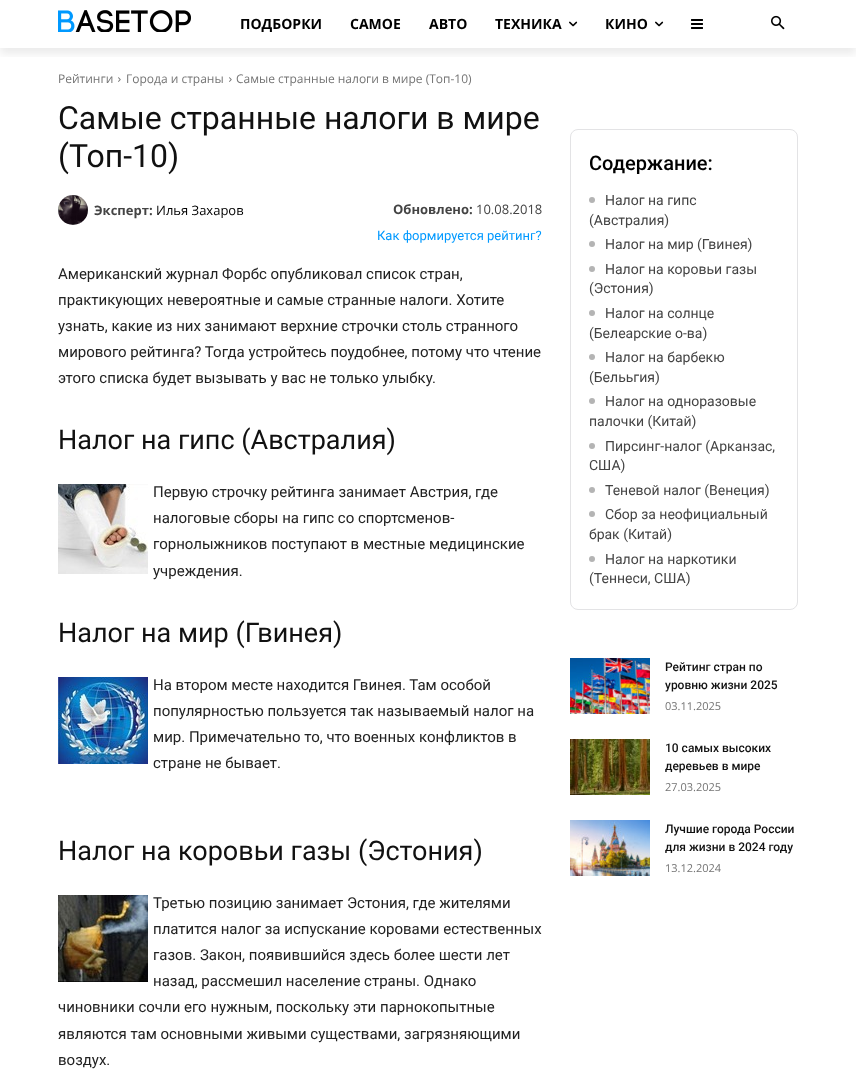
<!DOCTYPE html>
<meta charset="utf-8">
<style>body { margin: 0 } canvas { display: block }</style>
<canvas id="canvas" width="856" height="1087"></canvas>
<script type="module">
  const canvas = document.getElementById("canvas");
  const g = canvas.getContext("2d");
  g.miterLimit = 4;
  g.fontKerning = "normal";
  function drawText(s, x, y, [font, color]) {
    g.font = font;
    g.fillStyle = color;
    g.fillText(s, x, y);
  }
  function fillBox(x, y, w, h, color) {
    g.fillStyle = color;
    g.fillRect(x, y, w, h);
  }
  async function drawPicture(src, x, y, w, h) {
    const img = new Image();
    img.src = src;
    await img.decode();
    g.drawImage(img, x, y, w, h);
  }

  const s1 = ["bold 14px Open Sans", "#000000"];
  const s2 = ["12px Open Sans", "#747474"];
  const s3 = ["32px Roboto", "#111111"];
  const s4 = ["bold 13px Open Sans", "#444444"];
  const s5 = ["13px Open Sans", "#000000"];
  const s6 = ["13px Open Sans", "#444444"];
  const s7 = ["13px Roboto", "#0099FF"];
  const s8 = ["15px Roboto", "#222222"];
  const s9 = ["27px Roboto", "#111111"];
  const s10 = ["500 20px Roboto", "#000000"];
  const s11 = ["14px Roboto", "#444444"];
  const s12 = ["500 12px Roboto", "#111111"];
  const s13 = ["11px Open Sans", "#747474"];

  fillBox(0, 0, 856, 1087, "#FFFFFF");
  await drawPicture("pic1.png", 58, 10, 133, 22);
  g.save();
  g.beginPath();
  g.rect(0, 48, 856, 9);
  g.clip();
  g.fillStyle = "rgba(0, 0, 0, 0.08)";
  g.filter = "blur(4px)";
  g.beginPath();
  g.rect(0, 6, 856, 48);
  g.fill();
  g.filter = "none";
  g.restore();
  drawText("ПОДБОРКИ", 240, 29, s1);
  drawText("САМОЕ", 350, 29, s1);
  drawText("АВТО", 429, 29, s1);
  drawText("ТЕХНИКА", 495, 29, s1);
  await drawPicture("pic2.png", 569, 21, 9, 6);
  drawText("КИНО", 605, 29, s1);
  await drawPicture("pic2.png", 655, 21, 9, 6);
  await drawPicture("pic3.png", 691, 19, 12, 10);
  await drawPicture("pic4.png", 771, 15, 14, 15);
  drawText("Рейтинги", 58, 83, s2);
  await drawPicture("pic5.png", 118, 77, 3, 5);
  drawText("Города и страны", 126, 83, s2);
  await drawPicture("pic5.png", 229, 77, 3, 5);
  drawText("Самые странные налоги в мире (Топ-10)", 236, 83, s2);
  drawText("Самые странные налоги в мире", 58, 129, s3);
  drawText("(Топ-10)", 58, 167, s3);
  await drawPicture("pic6.png", 58, 195, 30, 30);
  drawText("Эксперт:", 94, 215, s4);
  drawText("Илья Захаров", 156, 215, s5);
  drawText("Обновлено:", 393, 214, s4);
  drawText("10.08.2018", 476, 214, s6);
  drawText("Как формируется рейтинг?", 377, 240, s7);
  drawText("Американский журнал Форбс опубликовал список стран,", 58, 279, s8);
  drawText("практикующих невероятные и самые странные налоги. Хотите", 58, 305, s8);
  drawText("узнать, какие из них занимают верхние строчки столь странного", 58, 331, s8);
  drawText("мирового рейтинга? Тогда устройтесь поудобнее, потому что чтение", 58, 357, s8);
  drawText("этого списка будет вызывать у вас не только улыбку.", 58, 383, s8);
  drawText("Налог на гипс (Австралия)", 58, 449, s9);
  await drawPicture("pic7.png", 58, 484, 90, 90);
  drawText("Первую строчку рейтинга занимает Австрия, где", 153, 497, s8);
  drawText("налоговые сборы на гипс со спортсменов-", 153, 523, s8);
  drawText("горнолыжников поступают в местные медицинские", 153, 549, s8);
  drawText("учреждения.", 153, 576, s8);
  drawText("Налог на мир (Гвинея)", 58, 642, s9);
  await drawPicture("pic8.png", 58, 677, 90, 87);
  drawText("На втором месте находится Гвинея. Там особой", 153, 690, s8);
  drawText("популярностью пользуется так называемый налог на", 153, 716, s8);
  drawText("мир. Примечательно то, что военных конфликтов в", 153, 742, s8);
  drawText("стране не бывает.", 153, 768, s8);
  drawText("Налог на коровьи газы (Эстония)", 58, 860, s9);
  await drawPicture("pic9.png", 58, 895, 90, 87);
  drawText("Третью позицию занимает Эстония, где жителями", 153, 908, s8);
  drawText("платится налог за испускание коровами естественных", 153, 934, s8);
  drawText("газов. Закон, появившийся здесь более шести лет", 153, 960, s8);
  drawText("назад, рассмешил население страны. Однако", 153, 986, s8);
  drawText("чиновники сочли его нужным, поскольку эти парнокопытные", 58, 1012, s8);
  drawText("являются там основными живыми существами, загрязняющими", 58, 1039, s8);
  drawText("воздух.", 58, 1065, s8);
  g.beginPath();
  g.roundRect(570.5, 129.5, 227, 480, 7.5);
  g.strokeStyle = "#E3E3E5";
  g.stroke();
  drawText("Содержание:", 589, 170, s10);
  g.fillStyle = "#B4B4B4";
  g.beginPath();
  g.arc(592, 200, 3, 0, Math.PI * 2);
  g.fill();
  drawText("Налог на гипс", 605, 205, s11);
  drawText("(Австралия)", 589, 225, s11);
  g.fillStyle = "#B4B4B4";
  g.beginPath();
  g.arc(592, 244, 3, 0, Math.PI * 2);
  g.fill();
  drawText("Налог на мир (Гвинея)", 605, 249, s11);
  g.fillStyle = "#B4B4B4";
  g.beginPath();
  g.arc(592, 269, 3, 0, Math.PI * 2);
  g.fill();
  drawText("Налог на коровьи газы", 605, 274, s11);
  drawText("(Эстония)", 589, 293, s11);
  g.fillStyle = "#B4B4B4";
  g.beginPath();
  g.arc(592, 313, 3, 0, Math.PI * 2);
  g.fill();
  drawText("Налог на солнце", 605, 318, s11);
  drawText("(Белеарские о-ва)", 589, 338, s11);
  g.fillStyle = "#B4B4B4";
  g.beginPath();
  g.arc(592, 357, 3, 0, Math.PI * 2);
  g.fill();
  drawText("Налог на барбекю", 605, 362, s11);
  drawText("(Белььгия)", 589, 382, s11);
  g.fillStyle = "#B4B4B4";
  g.beginPath();
  g.arc(592, 401, 3, 0, Math.PI * 2);
  g.fill();
  drawText("Налог на одноразовые", 605, 406, s11);
  drawText("палочки (Китай)", 589, 426, s11);
  g.fillStyle = "#B4B4B4";
  g.beginPath();
  g.arc(592, 446, 3, 0, Math.PI * 2);
  g.fill();
  drawText("Пирсинг-налог (Арканзас,", 605, 451, s11);
  drawText("США)", 589, 470, s11);
  g.fillStyle = "#B4B4B4";
  g.beginPath();
  g.arc(592, 490, 3, 0, Math.PI * 2);
  g.fill();
  drawText("Теневой налог (Венеция)", 605, 495, s11);
  g.fillStyle = "#B4B4B4";
  g.beginPath();
  g.arc(592, 514, 3, 0, Math.PI * 2);
  g.fill();
  drawText("Сбор за неофициальный", 605, 519, s11);
  drawText("брак (Китай)", 589, 539, s11);
  g.fillStyle = "#B4B4B4";
  g.beginPath();
  g.arc(592, 559, 3, 0, Math.PI * 2);
  g.fill();
  drawText("Налог на наркотики", 605, 564, s11);
  drawText("(Теннеси, США)", 589, 583, s11);
  await drawPicture("pic10.png", 570, 658, 80, 56);
  drawText("Рейтинг стран по", 665, 671, s12);
  drawText("уровню жизни 2025", 665, 689, s12);
  drawText("03.11.2025", 665, 710, s13);
  await drawPicture("pic11.png", 570, 739, 80, 56);
  drawText("10 самых высоких", 665, 752, s12);
  drawText("деревьев в мире", 665, 770, s12);
  drawText("27.03.2025", 665, 791, s13);
  await drawPicture("pic12.png", 570, 820, 80, 56);
  drawText("Лучшие города России", 665, 833, s12);
  drawText("для жизни в 2024 году", 665, 851, s12);
  drawText("13.12.2024", 665, 872, s13);
</script>
